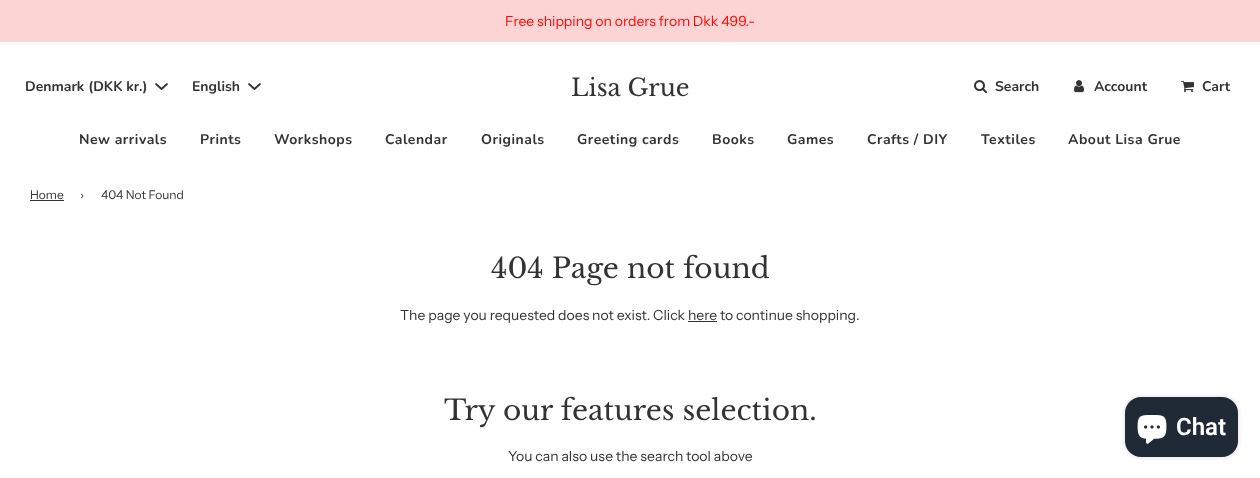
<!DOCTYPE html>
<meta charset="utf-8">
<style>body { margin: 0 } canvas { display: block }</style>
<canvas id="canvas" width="1260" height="478"></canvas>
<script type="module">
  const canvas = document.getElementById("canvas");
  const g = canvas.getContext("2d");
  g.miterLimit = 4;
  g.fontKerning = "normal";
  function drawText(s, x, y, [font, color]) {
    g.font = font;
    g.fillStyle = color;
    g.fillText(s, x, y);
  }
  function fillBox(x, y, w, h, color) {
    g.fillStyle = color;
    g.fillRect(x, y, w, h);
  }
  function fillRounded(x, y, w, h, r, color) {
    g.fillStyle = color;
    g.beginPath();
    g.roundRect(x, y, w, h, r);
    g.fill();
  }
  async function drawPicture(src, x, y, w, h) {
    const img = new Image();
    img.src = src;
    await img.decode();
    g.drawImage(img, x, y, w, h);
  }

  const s1 = ["14px Instrument Sans", "#FF0A0A"];
  const s2 = ["bold 14px Nunito", "#333333"];
  const s3 = ["24px Libre Baskerville", "#333333"];
  const s4 = ["12px Instrument Sans", "#333333"];
  const s5 = ["28px Libre Baskerville", "#333333"];
  const s6 = ["14px Instrument Sans", "#333333"];
  const s7 = ["600 24px Roboto", "#FFFFFF"];

  fillBox(0, 0, 1260, 478, "#FFFFFF");
  fillBox(0, 0, 1260, 42, "#FDD4D4");
  drawText("Free shipping on orders from Dkk 499.-", 505, 26, s1);
  drawText("Denmark (DKK kr.)", 25, 91, s2);
  g.beginPath();
  g.moveTo(156, 84);
  g.lineTo(161.5, 89);
  g.lineTo(167, 84);
  g.strokeStyle = "#333333";
  g.lineWidth = 1.8;
  g.lineCap = "round";
  g.lineJoin = "round";
  g.stroke();
  drawText("English", 192, 91, s2);
  g.beginPath();
  g.moveTo(249, 84);
  g.lineTo(254.5, 89);
  g.lineTo(260, 84);
  g.stroke();
  drawText("Lisa Grue", 571, 96, s3);
  await drawPicture("pic1.png", 974, 80, 13, 14);
  drawText("Search", 995, 91, s2);
  await drawPicture("pic2.png", 1074, 80, 10, 13);
  drawText("Account", 1094, 91, s2);
  await drawPicture("pic3.png", 1181, 81, 13, 12);
  drawText("Cart", 1202, 91, s2);
  g.letterSpacing = "0.5px";
  drawText("New arrivals", 79, 144, s2);
  drawText("Prints", 200, 144, s2);
  drawText("Workshops", 274, 144, s2);
  drawText("Calendar", 385, 144, s2);
  drawText("Originals", 481, 144, s2);
  drawText("Greeting cards", 577, 144, s2);
  drawText("Books", 712, 144, s2);
  drawText("Games", 787, 144, s2);
  drawText("Crafts / DIY", 867, 144, s2);
  drawText("Textiles", 981, 144, s2);
  drawText("About Lisa Grue", 1068, 144, s2);
  g.letterSpacing = "0px";
  drawText("Home", 30, 199, s4);
  fillBox(30, 200, 34, 1, "#333333");
  drawText("›", 80, 199, s4);
  drawText("404 Not Found", 101, 199, s4);
  drawText("404 Page not found", 491, 278, s5);
  drawText("The page you requested does not exist. Click here to continue shopping.", 400, 320, s6);
  fillBox(688, 321, 29, 1, "#333333");
  drawText("Try our features selection.", 444, 420, s5);
  drawText("You can also use the search tool above", 508, 461, s6);
  g.fillStyle = "rgba(0, 0, 0, 0.15)";
  g.filter = "blur(2.5px)";
  g.beginPath();
  g.roundRect(1125, 397, 113, 60, 16);
  g.fill();
  g.filter = "none";
  fillRounded(1125, 397, 113, 60, 16, "#202A36");
  await drawPicture("pic4.png", 1137, 415, 30, 29);
  drawText("Chat", 1176, 435, s7);
</script>
